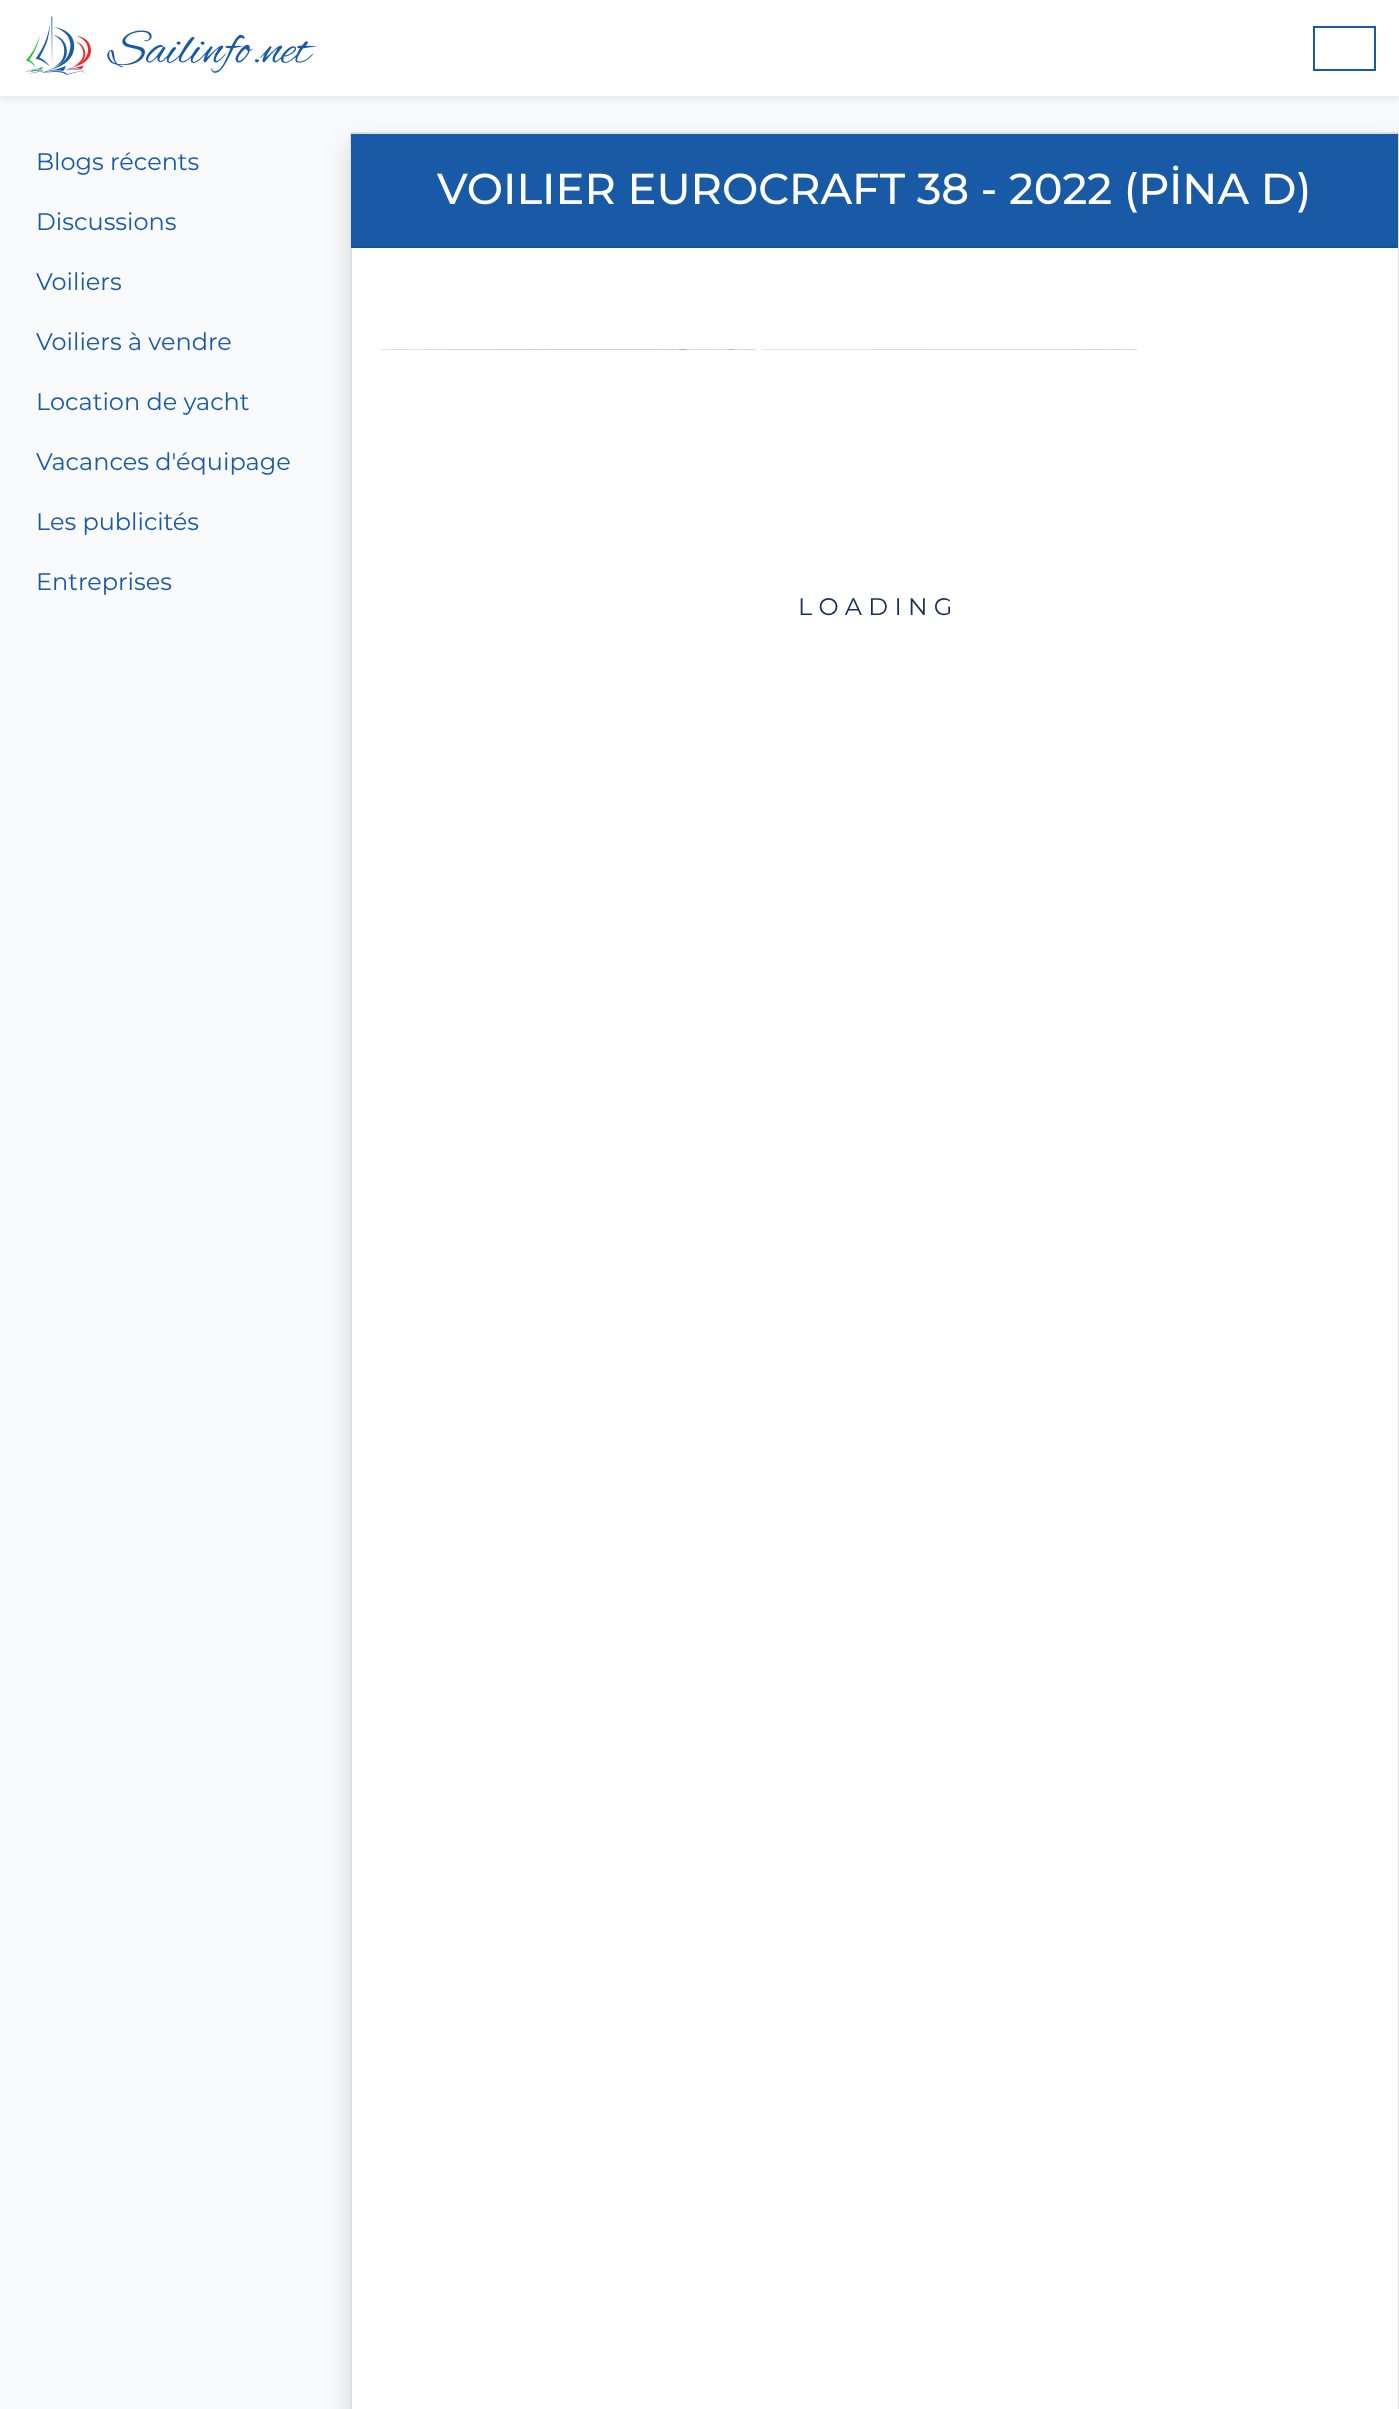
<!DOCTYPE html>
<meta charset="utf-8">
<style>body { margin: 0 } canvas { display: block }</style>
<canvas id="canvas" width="1399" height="2409"></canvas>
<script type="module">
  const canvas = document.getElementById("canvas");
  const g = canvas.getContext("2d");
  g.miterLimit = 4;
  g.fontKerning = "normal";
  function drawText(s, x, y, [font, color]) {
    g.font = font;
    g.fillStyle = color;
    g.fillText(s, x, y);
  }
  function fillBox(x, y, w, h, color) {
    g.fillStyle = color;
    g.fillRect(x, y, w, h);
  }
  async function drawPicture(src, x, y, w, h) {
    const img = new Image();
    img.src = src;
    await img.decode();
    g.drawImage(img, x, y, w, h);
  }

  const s1 = ["24px Montserrat", "#195AA7"];
  const s2 = ["500 43.2px Montserrat", "#FFFFFF"];
  const s3 = ["24px Montserrat", "#132D5A"];

  fillBox(0, 0, 1399, 2409, "#F8FAFC");
  g.fillStyle = "rgba(0, 0, 0, 0.08)";
  g.filter = "blur(3px)";
  g.beginPath();
  g.rect(0, 3, 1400, 96);
  g.fill();
  g.filter = "none";
  fillBox(0, 0, 1399, 96, "#FFFFFF");
  await drawPicture("pic1.png", 25, 16, 292, 59);
  g.strokeStyle = "#195AA7";
  g.lineWidth = 2;
  g.strokeRect(1314, 27, 61, 43);
  drawText("Blogs récents", 36, 170, s1);
  drawText("Discussions", 36, 230, s1);
  drawText("Voiliers", 36, 290, s1);
  drawText("Voiliers à vendre", 36, 350, s1);
  drawText("Location de yacht", 36, 410, s1);
  drawText("Vacances d'équipage", 36, 470, s1);
  drawText("Les publicités", 36, 530, s1);
  drawText("Entreprises", 36, 590, s1);
  g.fillStyle = "rgba(0, 0, 0, 0.15)";
  g.filter = "blur(12px)";
  g.beginPath();
  g.rect(350, 144, 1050, 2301);
  g.fill();
  g.filter = "none";
  fillBox(352, 248, 1046, 2161, "#FFFFFF");
  g.strokeStyle = "#DFDFDF";
  g.strokeRect(351, 133, 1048, 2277);
  fillBox(351, 134, 1047, 112, "#195AA7");
  fillBox(351, 246, 1047, 2, "#164F92");
  drawText("VOILIER EUROCRAFT 38 - 2022 (PİNA D)", 437, 204, s2);
  await drawPicture("pic2.png", 381, 349, 375, 1);
  await drawPicture("pic3.png", 762, 349, 375, 1);
  drawText("L O A D I N G", 798, 615, s3);
</script>
